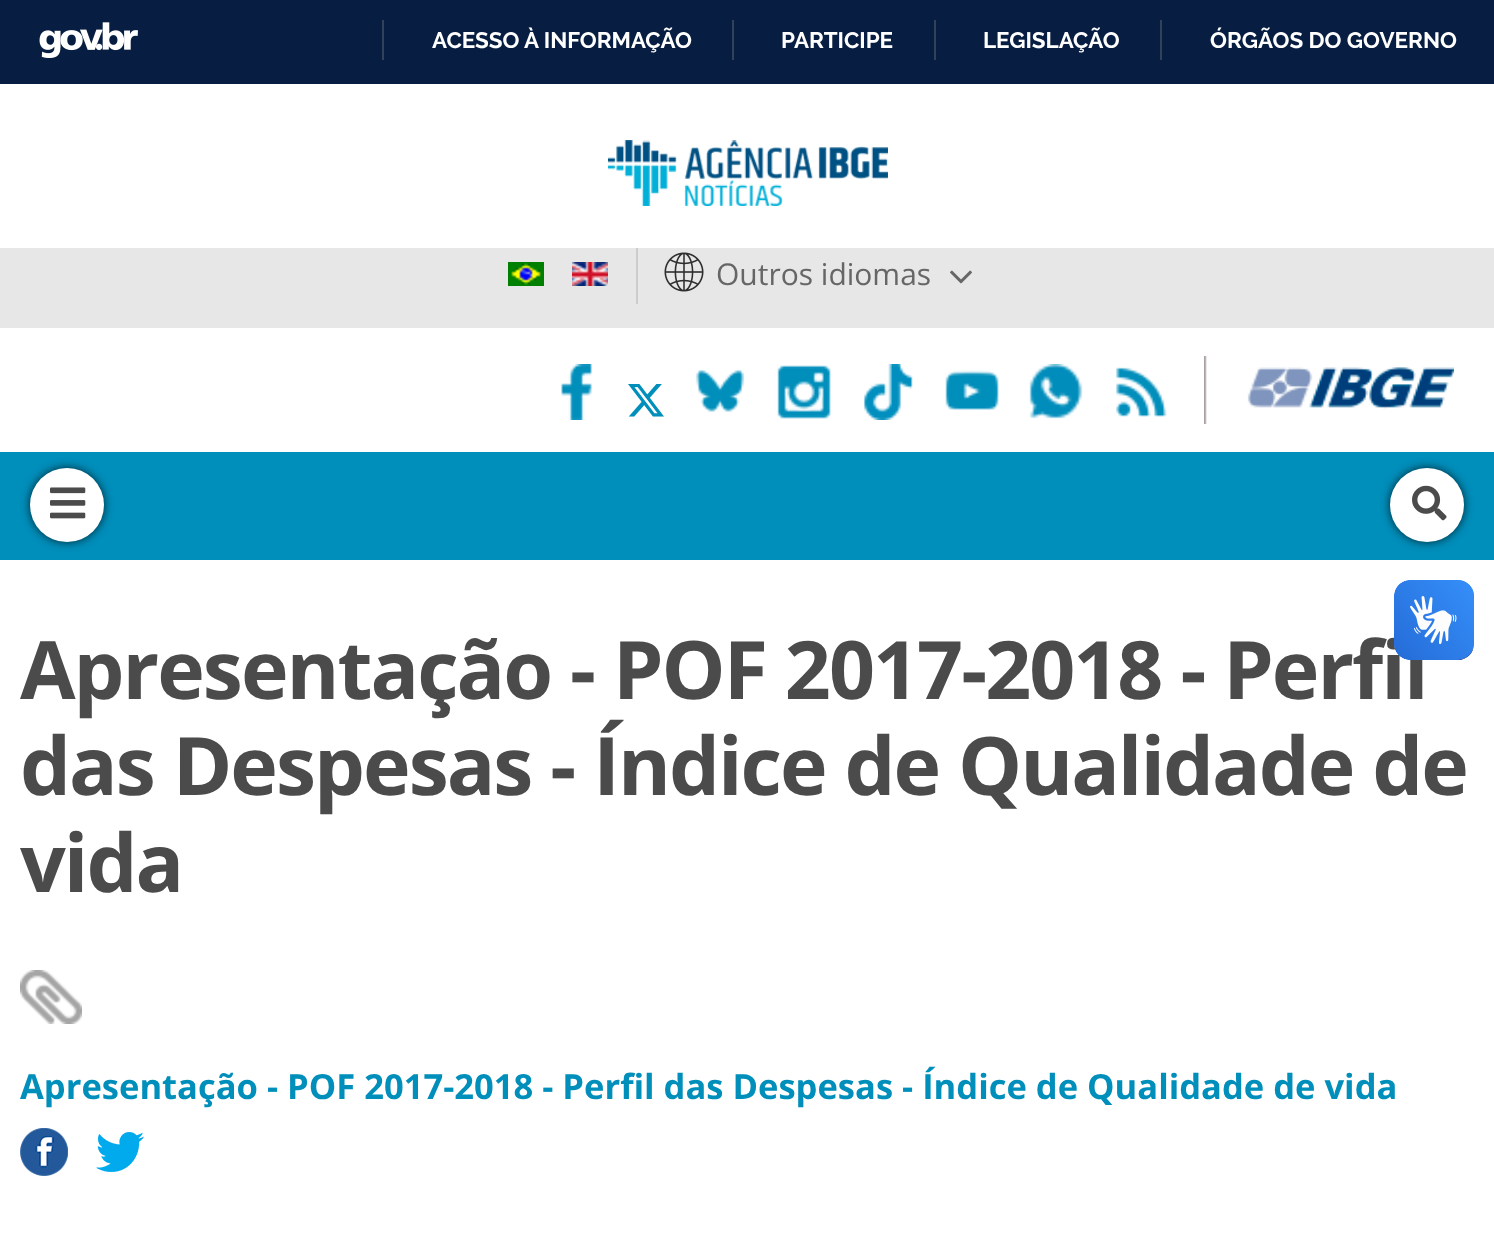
<!DOCTYPE html>
<meta charset="utf-8">
<style>body { margin: 0 } canvas { display: block }</style>
<canvas id="canvas" width="1494" height="1238"></canvas>
<script type="module">
  const canvas = document.getElementById("canvas");
  const g = canvas.getContext("2d");
  g.miterLimit = 4;
  g.fontKerning = "normal";
  function drawText(s, x, y, [font, color]) {
    g.font = font;
    g.fillStyle = color;
    g.fillText(s, x, y);
  }
  function fillBox(x, y, w, h, color) {
    g.fillStyle = color;
    g.fillRect(x, y, w, h);
  }
  async function drawPicture(src, x, y, w, h) {
    const img = new Image();
    img.src = src;
    await img.decode();
    g.drawImage(img, x, y, w, h);
  }

  const s1 = ["bold 22.4px Raleway", "#FFFFFF"];
  const s2 = ["30px Open Sans", "#666666"];
  const s3 = ["bold 80.6px Open Sans", "#4B4B4C"];
  const s4 = ["bold 34.55px Open Sans", "#008EBB"];

  fillBox(0, 0, 1494, 1238, "#FFFFFF");
  fillBox(0, 0, 1494, 84, "#071D41");
  await drawPicture("pic1.png", 39, 22, 99, 36);
  fillBox(382, 20, 2, 40, "#32425B");
  drawText("ACESSO À INFORMAÇÃO", 432, 48, s1);
  fillBox(732, 20, 2, 40, "#32425B");
  drawText("PARTICIPE", 781, 48, s1);
  fillBox(934, 20, 2, 40, "#32425B");
  drawText("LEGISLAÇÃO", 983, 48, s1);
  fillBox(1160, 20, 2, 40, "#32425B");
  drawText("ÓRGÃOS DO GOVERNO", 1210, 48, s1);
  await drawPicture("pic2.png", 608, 140, 280, 66);
  fillBox(0, 248, 1494, 80, "#E7E7E7");
  await drawPicture("pic3.png", 508, 262, 36, 24);
  await drawPicture("pic4.png", 572, 262, 36, 24);
  fillBox(636, 248, 2, 56, "#CCCCCC");
  await drawPicture("pic5.png", 664, 252, 40, 40);
  drawText("Outros idiomas", 716, 285, s2);
  await drawPicture("pic6.png", 950, 270, 22, 14);
  await drawPicture("pic7.png", 561, 364, 31, 56);
  await drawPicture("pic8.png", 628, 384, 36, 33);
  await drawPicture("pic9.png", 695, 370, 50, 42);
  await drawPicture("pic10.png", 777, 365, 54, 54);
  await drawPicture("pic11.png", 864, 364, 49, 56);
  await drawPicture("pic12.png", 945, 370, 54, 40);
  await drawPicture("pic13.png", 1029, 364, 54, 55);
  await drawPicture("pic14.png", 1116, 367, 51, 50);
  await drawPicture("pic15.png", 1204, 356, 250, 68);
  fillBox(0, 452, 1494, 108, "#008EBB");
  g.fillStyle = "rgba(0, 0, 0, 0.75)";
  g.filter = "blur(5px)";
  g.beginPath();
  g.roundRect(30, 468, 74, 74, 37);
  g.fill();
  g.filter = "none";
  g.fillStyle = "#FFFFFF";
  g.beginPath();
  g.arc(67, 505, 37, 0, Math.PI * 2);
  g.fill();
  await drawPicture("pic16.png", 50, 487, 36, 32);
  g.fillStyle = "rgba(0, 0, 0, 0.75)";
  g.filter = "blur(5px)";
  g.beginPath();
  g.roundRect(1390, 468, 74, 74, 37);
  g.fill();
  g.filter = "none";
  g.fillStyle = "#FFFFFF";
  g.beginPath();
  g.arc(1427, 505, 37, 0, Math.PI * 2);
  g.fill();
  await drawPicture("pic17.png", 1412, 485, 35, 36);
  g.letterSpacing = "-2px";
  drawText("Apresentação - POF 2017-2018 - Perfil", 20, 699, s3);
  await drawPicture("pic18.png", 1394, 580, 80, 80);
  await drawPicture("pic19.png", 1394, 580, 80, 80);
  drawText("das Despesas - Índice de Qualidade de", 20, 795, s3);
  drawText("vida", 20, 892, s3);
  await drawPicture("pic20.png", 20, 970, 62, 54);
  g.letterSpacing = "0px";
  drawText("Apresentação - POF 2017-2018 - Perfil das Despesas - Índice de Qualidade de vida", 20, 1099, s4);
  await drawPicture("pic21.png", 20, 1128, 48, 48);
  await drawPicture("pic22.png", 96, 1132, 48, 40);
</script>
